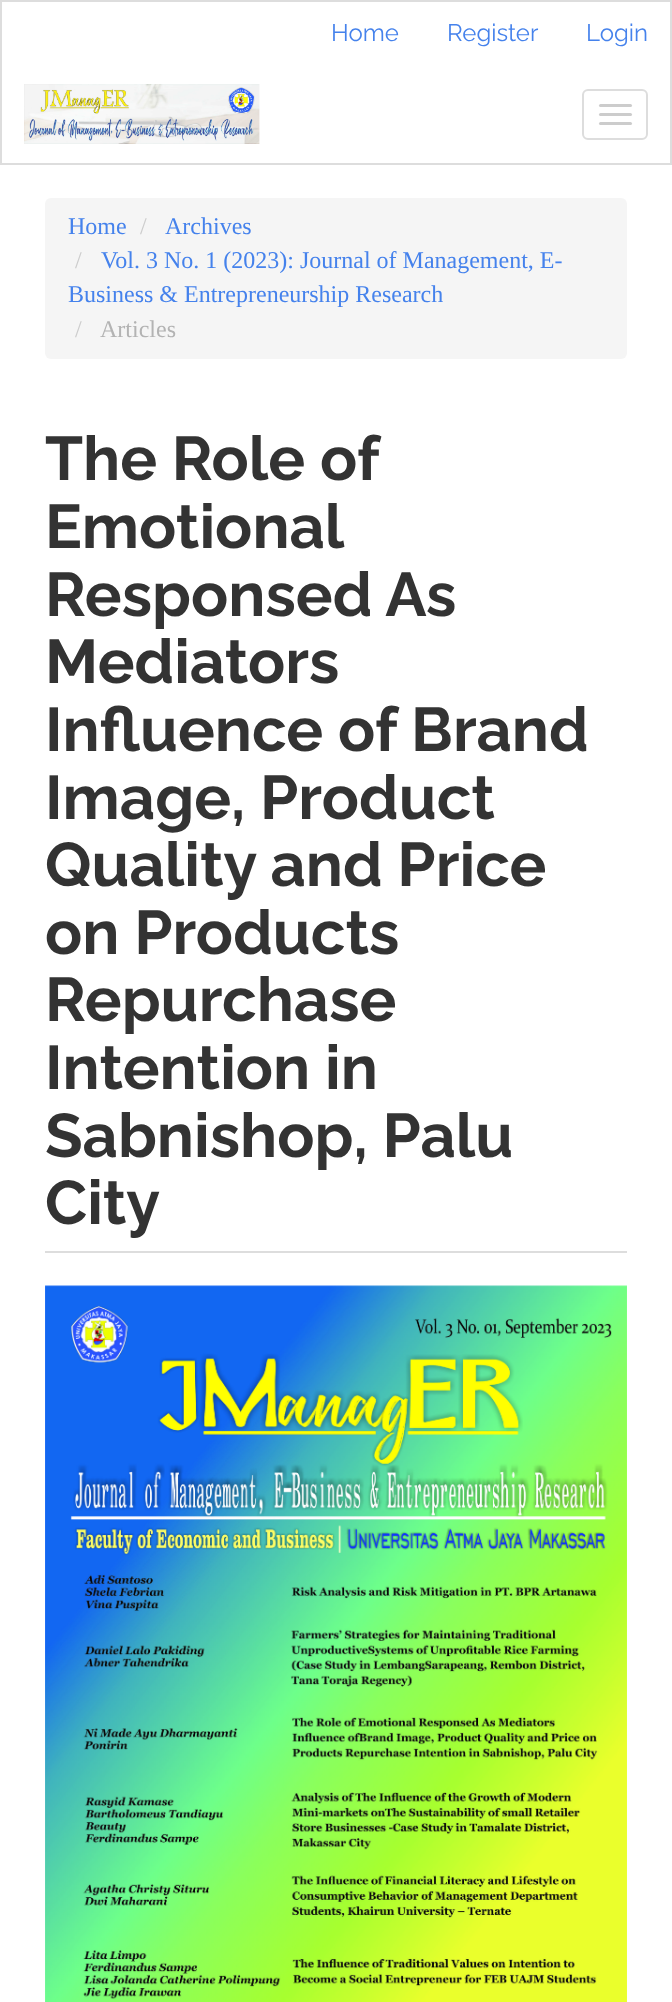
<!DOCTYPE html>
<meta charset="utf-8">
<style>body { margin: 0 } canvas { display: block }</style>
<canvas id="canvas" width="672" height="2002"></canvas>
<script type="module">
  const canvas = document.getElementById("canvas");
  const g = canvas.getContext("2d");
  g.miterLimit = 4;
  g.fontKerning = "normal";
  function drawText(s, x, y, [font, color]) {
    g.font = font;
    g.fillStyle = color;
    g.fillText(s, x, y);
  }
  function fillBox(x, y, w, h, color) {
    g.fillStyle = color;
    g.fillRect(x, y, w, h);
  }
  function fillRounded(x, y, w, h, r, color) {
    g.fillStyle = color;
    g.beginPath();
    g.roundRect(x, y, w, h, r);
    g.fill();
  }
  async function drawPicture(src, x, y, w, h) {
    const img = new Image();
    img.src = src;
    await img.decode();
    g.drawImage(img, x, y, w, h);
  }

  const s1 = ["24px Raleway", "#4582EC"];
  const s2 = ["24px Liberation Serif", "#4582EC"];
  const s3 = ["24px Liberation Serif", "#CCCCCC"];
  const s4 = ["24px Liberation Serif", "#B3B3B3"];
  const s5 = ["bold 61.5px Raleway", "#333333"];

  fillBox(0, 0, 672, 2002, "#FFFFFF");
  g.strokeStyle = "#DDDDDD";
  g.lineWidth = 2;
  g.strokeRect(1, 1, 670, 163);
  drawText("Home", 331, 41, s1);
  drawText("Register", 447, 41, s1);
  drawText("Login", 586, 41, s1);
  await drawPicture("pic1.png", 24, 84, 236, 60);
  g.beginPath();
  g.roundRect(583, 90, 64, 49, 5);
  g.stroke();
  fillRounded(599, 104, 33, 3, 1.5, "#CCCCCC");
  fillRounded(599, 113, 33, 3, 1.5, "#CCCCCC");
  fillRounded(599, 122, 33, 3, 1.5, "#CCCCCC");
  fillRounded(45, 198, 582, 161, 6, "#F5F5F5");
  drawText("Home", 68, 234, s2);
  drawText("/", 140, 234, s3);
  drawText("Archives", 165, 234, s2);
  drawText("/", 75, 268, s3);
  drawText("Vol. 3 No. 1 (2023): Journal of Management, E-", 101, 268, s2);
  drawText("Business & Entrepreneurship Research", 68, 302, s2);
  drawText("/", 75, 337, s3);
  drawText("Articles", 100, 337, s4);
  fillBox(45, 1251, 582, 2, "#DDDDDD");
  drawText("The Role of", 45, 480, s5);
  drawText("Emotional", 45, 548, s5);
  drawText("Responsed As", 45, 616, s5);
  drawText("Mediators", 45, 683, s5);
  drawText("Influence of Brand", 45, 751, s5);
  drawText("Image, Product", 45, 819, s5);
  drawText("Quality and Price", 45, 886, s5);
  drawText("on Products", 45, 954, s5);
  drawText("Repurchase", 45, 1021, s5);
  drawText("Intention in", 45, 1089, s5);
  drawText("Sabnishop, Palu", 45, 1157, s5);
  drawText("City", 45, 1224, s5);
  await drawPicture("pic2.png", 45, 1285, 582, 717);
</script>
